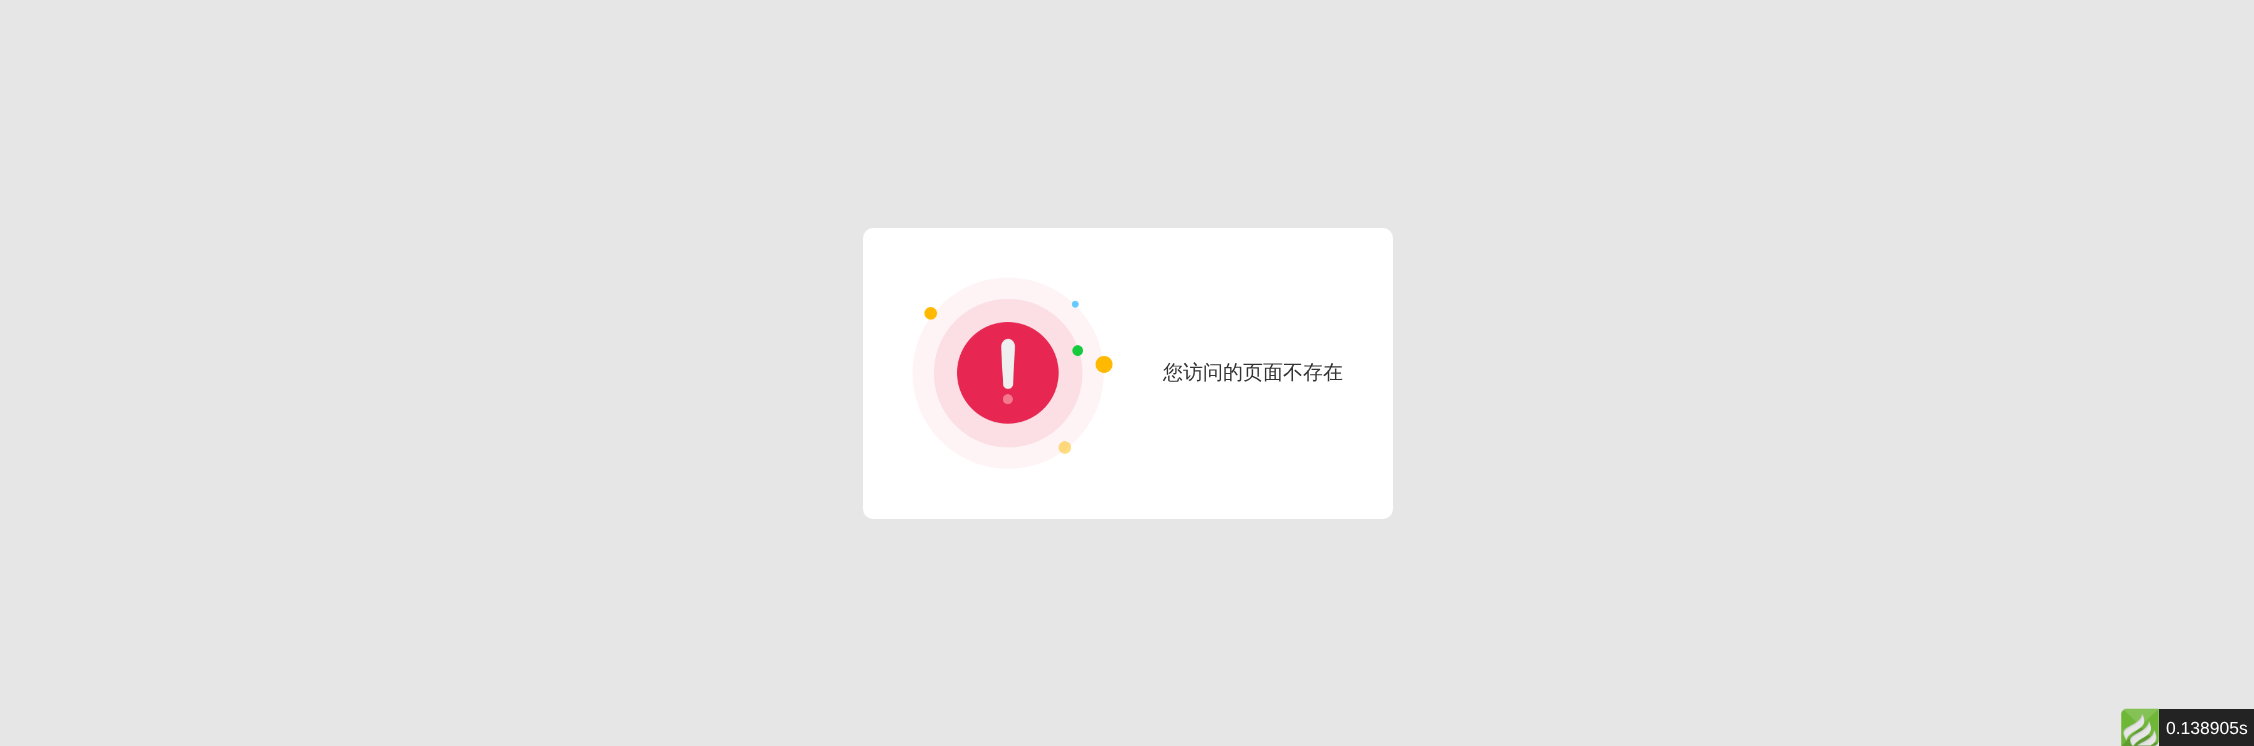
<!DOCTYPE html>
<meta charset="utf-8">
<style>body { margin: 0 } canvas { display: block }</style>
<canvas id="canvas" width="2254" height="746"></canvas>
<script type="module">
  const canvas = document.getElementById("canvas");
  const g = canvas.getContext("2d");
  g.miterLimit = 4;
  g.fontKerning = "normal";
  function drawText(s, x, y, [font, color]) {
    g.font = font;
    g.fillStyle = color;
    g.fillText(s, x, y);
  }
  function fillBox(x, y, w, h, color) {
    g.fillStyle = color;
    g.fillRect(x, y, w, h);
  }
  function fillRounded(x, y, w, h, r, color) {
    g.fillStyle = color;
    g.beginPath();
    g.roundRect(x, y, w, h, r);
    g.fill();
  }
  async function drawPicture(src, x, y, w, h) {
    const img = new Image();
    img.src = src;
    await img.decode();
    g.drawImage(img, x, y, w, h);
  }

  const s1 = ["500 20px WenQuanYi Zen Hei", "#333333"];
  const s2 = ["17.5px Liberation Sans", "#FFFFFF"];

  fillBox(0, 0, 2254, 746, "#E6E6E6");
  fillRounded(863, 228, 530, 291, 10, "#FFFFFF");
  await drawPicture("pic1.png", 912, 277, 201, 192);
  drawText("您访问的页面不存在", 1163, 379, s1);
  await drawPicture("pic2.png", 2121, 708, 38, 38);
  fillBox(2159, 709, 95, 37, "#232323");
  drawText("0.138905s", 2166, 734, s2);
</script>
